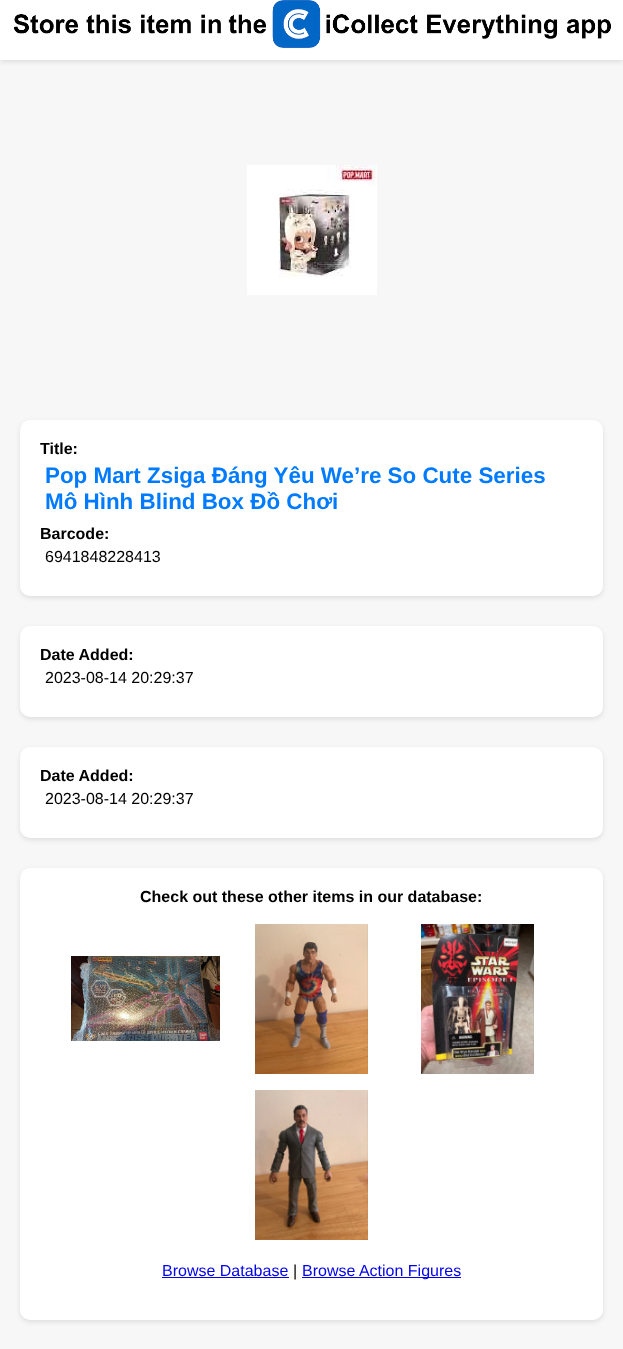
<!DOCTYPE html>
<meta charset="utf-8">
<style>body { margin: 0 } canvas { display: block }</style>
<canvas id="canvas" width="623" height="1349"></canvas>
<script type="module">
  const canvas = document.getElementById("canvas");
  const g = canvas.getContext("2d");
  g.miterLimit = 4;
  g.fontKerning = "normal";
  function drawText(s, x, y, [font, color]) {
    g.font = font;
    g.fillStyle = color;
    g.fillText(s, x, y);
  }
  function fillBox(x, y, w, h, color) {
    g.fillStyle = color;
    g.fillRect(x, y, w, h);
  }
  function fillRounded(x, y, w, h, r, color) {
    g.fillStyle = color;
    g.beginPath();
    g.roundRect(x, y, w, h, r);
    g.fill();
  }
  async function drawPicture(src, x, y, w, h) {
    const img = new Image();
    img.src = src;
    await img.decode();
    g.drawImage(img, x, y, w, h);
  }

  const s1 = ["bold 16px Liberation Sans", "#000000"];
  const s2 = ["bold 22.4px Liberation Sans", "#007BFF"];
  const s3 = ["16px Liberation Sans", "#000000"];
  const s4 = ["16px Liberation Sans", "#0000EE"];

  fillBox(0, 0, 623, 1349, "#F7F7F7");
  g.fillStyle = "rgba(0, 0, 0, 0.1)";
  g.filter = "blur(2.5px)";
  g.beginPath();
  g.rect(0, -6, 623, 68);
  g.fill();
  g.filter = "none";
  fillBox(0, 0, 623, 60, "#FFFFFF");
  await drawPicture("pic1.png", 14, 0, 598, 49);
  await drawPicture("pic2.png", 247, 165, 130, 130);
  g.fillStyle = "rgba(0, 0, 0, 0.1)";
  g.filter = "blur(2.5px)";
  g.beginPath();
  g.roundRect(20, 422, 583, 176, 10);
  g.fill();
  g.filter = "none";
  fillRounded(20, 420, 583, 176, 10, "#FFFFFF");
  drawText("Title:", 40, 454, s1);
  drawText("Pop Mart Zsiga Đáng Yêu We’re So Cute Series", 45, 483, s2);
  drawText("Mô Hình Blind Box Đồ Chơi", 45, 509, s2);
  drawText("Barcode:", 40, 539, s1);
  drawText("6941848228413", 45, 562, s3);
  g.fillStyle = "rgba(0, 0, 0, 0.1)";
  g.filter = "blur(2.5px)";
  g.beginPath();
  g.roundRect(20, 628, 583, 91, 10);
  g.fill();
  g.filter = "none";
  fillRounded(20, 626, 583, 91, 10, "#FFFFFF");
  drawText("Date Added:", 40, 660, s1);
  drawText("2023-08-14 20:29:37", 45, 683, s3);
  g.fillStyle = "rgba(0, 0, 0, 0.1)";
  g.filter = "blur(2.5px)";
  g.beginPath();
  g.roundRect(20, 749, 583, 91, 10);
  g.fill();
  g.filter = "none";
  fillRounded(20, 747, 583, 91, 10, "#FFFFFF");
  drawText("Date Added:", 40, 781, s1);
  drawText("2023-08-14 20:29:37", 45, 804, s3);
  g.fillStyle = "rgba(0, 0, 0, 0.1)";
  g.filter = "blur(2.5px)";
  g.beginPath();
  g.roundRect(20, 870, 583, 452, 10);
  g.fill();
  g.filter = "none";
  fillRounded(20, 868, 583, 452, 10, "#FFFFFF");
  drawText("Check out these other items in our database:", 140, 902, s1);
  await drawPicture("pic3.png", 71, 956, 149, 85);
  await drawPicture("pic4.png", 255, 924, 113, 150);
  await drawPicture("pic5.png", 421, 924, 113, 150);
  await drawPicture("pic6.png", 255, 1090, 113, 150);
  drawText("Browse Database", 162, 1276, s4);
  fillBox(162, 1277, 127, 1, "#0000EE");
  drawText("|", 293, 1276, s3);
  fillBox(302, 1277, 159, 1, "#0000EE");
  drawText("Browse Action Figures", 302, 1276, s4);
</script>
